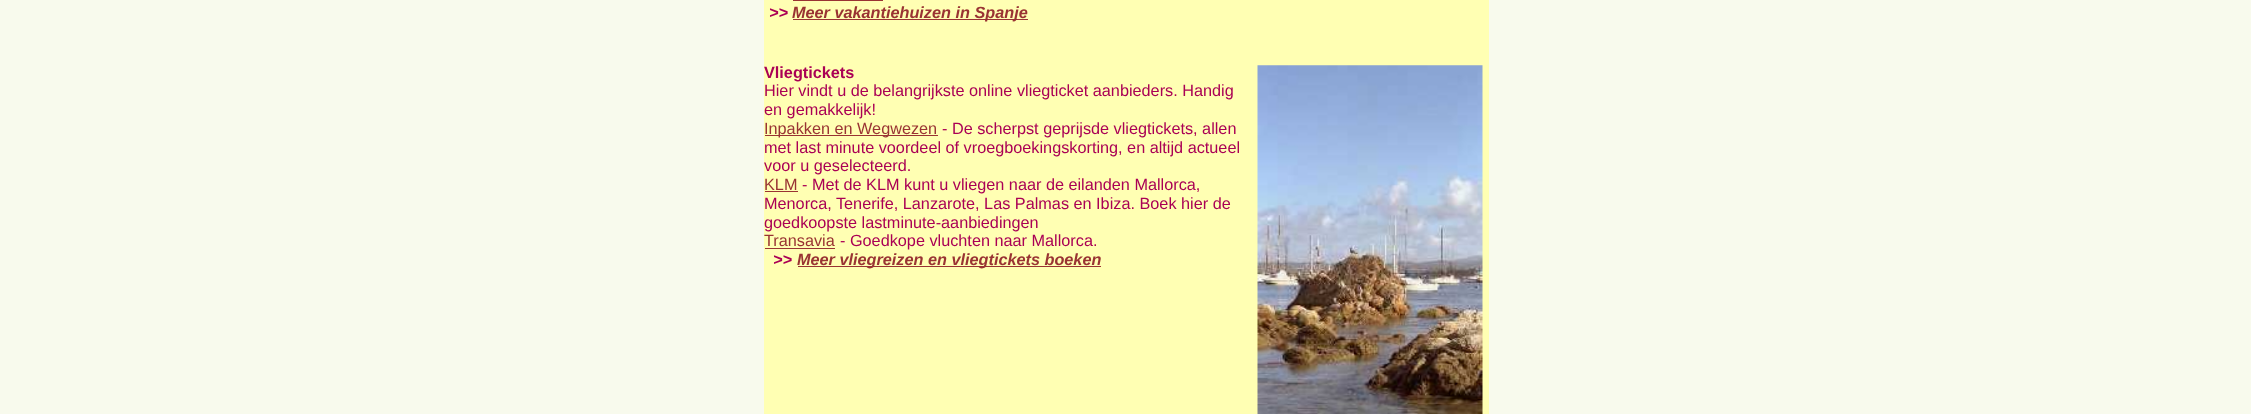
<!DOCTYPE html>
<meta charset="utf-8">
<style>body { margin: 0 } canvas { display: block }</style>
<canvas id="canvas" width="2251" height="414"></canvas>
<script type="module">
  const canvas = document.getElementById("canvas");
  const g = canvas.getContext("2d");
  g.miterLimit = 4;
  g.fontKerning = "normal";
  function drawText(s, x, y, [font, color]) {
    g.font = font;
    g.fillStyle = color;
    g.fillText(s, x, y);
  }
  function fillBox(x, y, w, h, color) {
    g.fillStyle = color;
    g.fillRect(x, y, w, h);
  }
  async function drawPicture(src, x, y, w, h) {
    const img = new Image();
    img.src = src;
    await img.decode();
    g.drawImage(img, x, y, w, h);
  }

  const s1 = ["italic bold 16.25px Liberation Sans", "#AA0055"];
  const s2 = ["italic bold 16.25px Liberation Sans", "#993333"];
  const s3 = ["bold 16.25px Liberation Sans", "#AA0055"];
  const s4 = ["16.25px Liberation Sans", "#AA0055"];
  const s5 = ["16.25px Liberation Sans", "#993333"];

  fillBox(0, 0, 2251, 414, "#F8FAED");
  fillBox(764, 0, 725, 414, "#FFFFB3");
  fillBox(793, 0, 90, 1, "#993333");
  drawText(">>", 769, 18, s1);
  fillBox(793, 19, 235, 1, "#993333");
  drawText("Meer vakantiehuizen in Spanje", 792, 18, s2);
  drawText("Vliegtickets", 764, 78, s3);
  await drawPicture("pic1.png", 1257, 65, 226, 349);
  drawText("Hier vindt u de belangrijkste online vliegticket aanbieders. Handig", 764, 96, s4);
  drawText("en gemakkelijk!", 764, 115, s4);
  fillBox(765, 135, 173, 1, "#993333");
  drawText("Inpakken en Wegwezen", 764, 134, s5);
  drawText("- De scherpst geprijsde vliegtickets, allen", 942, 134, s4);
  drawText("met last minute voordeel of vroegboekingskorting, en altijd actueel", 764, 153, s4);
  drawText("voor u geselecteerd.", 764, 171, s4);
  drawText("KLM", 764, 190, s5);
  fillBox(765, 191, 33, 1, "#993333");
  drawText("- Met de KLM kunt u vliegen naar de eilanden Mallorca,", 802, 190, s4);
  drawText("Menorca, Tenerife, Lanzarote, Las Palmas en Ibiza. Boek hier de", 764, 209, s4);
  drawText("goedkoopste lastminute-aanbiedingen", 764, 228, s4);
  drawText("Transavia", 764, 246, s5);
  fillBox(765, 248, 70, 1, "#993333");
  drawText("- Goedkope vluchten naar Mallorca.", 840, 246, s4);
  drawText(">>", 773, 265, s1);
  fillBox(798, 266, 303, 1, "#993333");
  drawText("Meer vliegreizen en vliegtickets boeken", 797, 265, s2);
</script>
